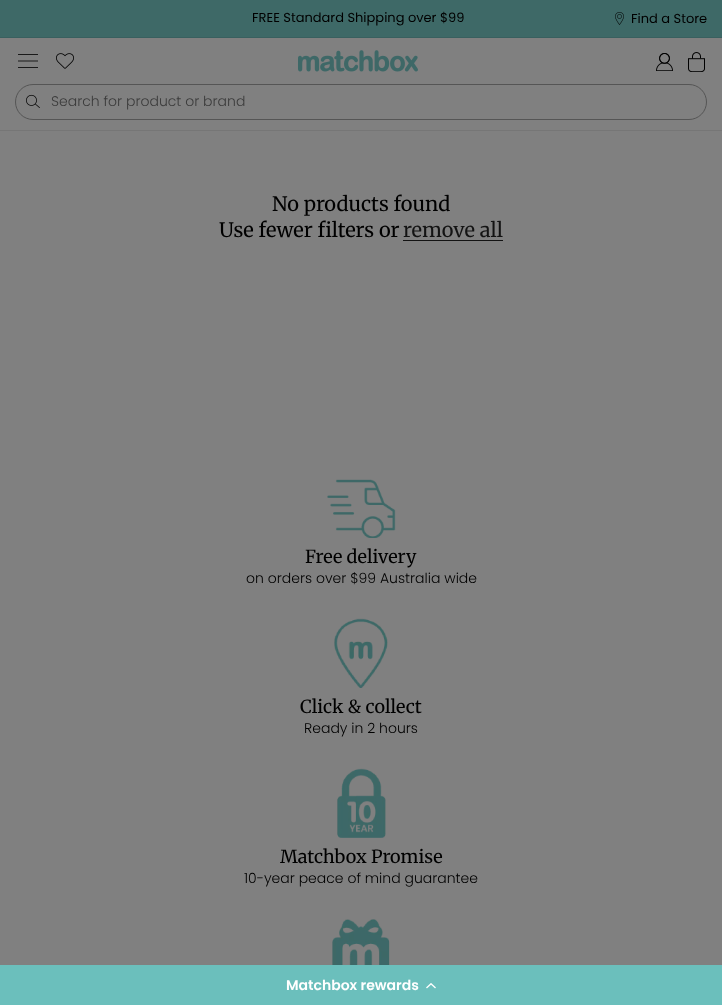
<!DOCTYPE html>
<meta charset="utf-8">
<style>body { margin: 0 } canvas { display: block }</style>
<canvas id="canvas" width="722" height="1005"></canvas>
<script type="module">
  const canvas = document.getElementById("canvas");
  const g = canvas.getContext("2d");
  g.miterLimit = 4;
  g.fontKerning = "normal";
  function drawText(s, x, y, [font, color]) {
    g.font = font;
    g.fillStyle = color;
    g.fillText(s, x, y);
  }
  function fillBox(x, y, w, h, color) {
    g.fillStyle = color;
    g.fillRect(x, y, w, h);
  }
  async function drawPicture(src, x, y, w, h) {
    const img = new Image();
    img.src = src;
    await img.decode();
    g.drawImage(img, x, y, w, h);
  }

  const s1 = ["13px Poppins", "#000000"];
  const s2 = ["300 14px Poppins", "#3B3B3B"];
  const s3 = ["20px Merriweather", "#000000"];
  const s4 = ["20px Merriweather", "#131313"];
  const s5 = ["18px Merriweather", "#000000"];
  const s6 = ["300 14px Poppins", "#000000"];
  const s7 = ["600 14px Poppins", "#FFFFFF"];

  fillBox(0, 0, 722, 1005, "#808080");
  fillBox(0, 0, 722, 37, "#3E6967");
  fillBox(0, 37, 722, 1, "#39605F");
  drawText("FREE Standard Shipping over $99", 252, 22, s1);
  await drawPicture("pic1.png", 615, 12, 9, 13);
  drawText("Find a Store", 631, 23, s1);
  fillBox(0, 130, 722, 1, "#767676");
  fillBox(18, 54, 20, 1, "#1A1A1A");
  g.beginPath();
  g.moveTo(38, 61);
  g.lineTo(18, 61);
  g.strokeStyle = "#000000";
  g.lineWidth = 0.8;
  g.stroke();
  fillBox(18, 67, 20, 1, "#1A1A1A");
  await drawPicture("pic2.png", 56, 53, 18, 16);
  await drawPicture("pic3.png", 298, 50, 120, 22);
  await drawPicture("pic4.png", 656, 53, 17, 18);
  await drawPicture("pic5.png", 688, 52, 17, 20);
  g.beginPath();
  g.roundRect(15.5, 84.5, 691, 35, 17.5);
  g.strokeStyle = "#555555";
  g.lineWidth = 1;
  g.stroke();
  await drawPicture("pic6.png", 26, 94, 14, 14);
  drawText("Search for product or brand", 51, 106, s2);
  drawText("No products found", 272, 211, s3);
  drawText("Use fewer filters or", 219, 237, s3);
  drawText("remove all", 403, 237, s4);
  fillBox(403, 240, 100, 1, "#131313");
  await drawPicture("pic7.png", 327, 479, 69, 59);
  drawText("Free delivery", 305, 563, s5);
  drawText("on orders over $99 Australia wide", 246, 583, s6);
  await drawPicture("pic8.png", 334, 618, 54, 70);
  drawText("Click & collect", 300, 713, s5);
  drawText("Ready in 2 hours", 304, 733, s6);
  await drawPicture("pic9.png", 337, 768, 49, 70);
  drawText("Matchbox Promise", 280, 863, s5);
  drawText("10-year peace of mind guarantee", 244, 883, s6);
  await drawPicture("pic10.png", 332, 919, 58, 46);
  fillBox(0, 965, 722, 40, "#6BBFBC");
  drawText("Matchbox rewards", 286, 990, s7);
  await drawPicture("pic11.png", 426, 983, 10, 6);
</script>
